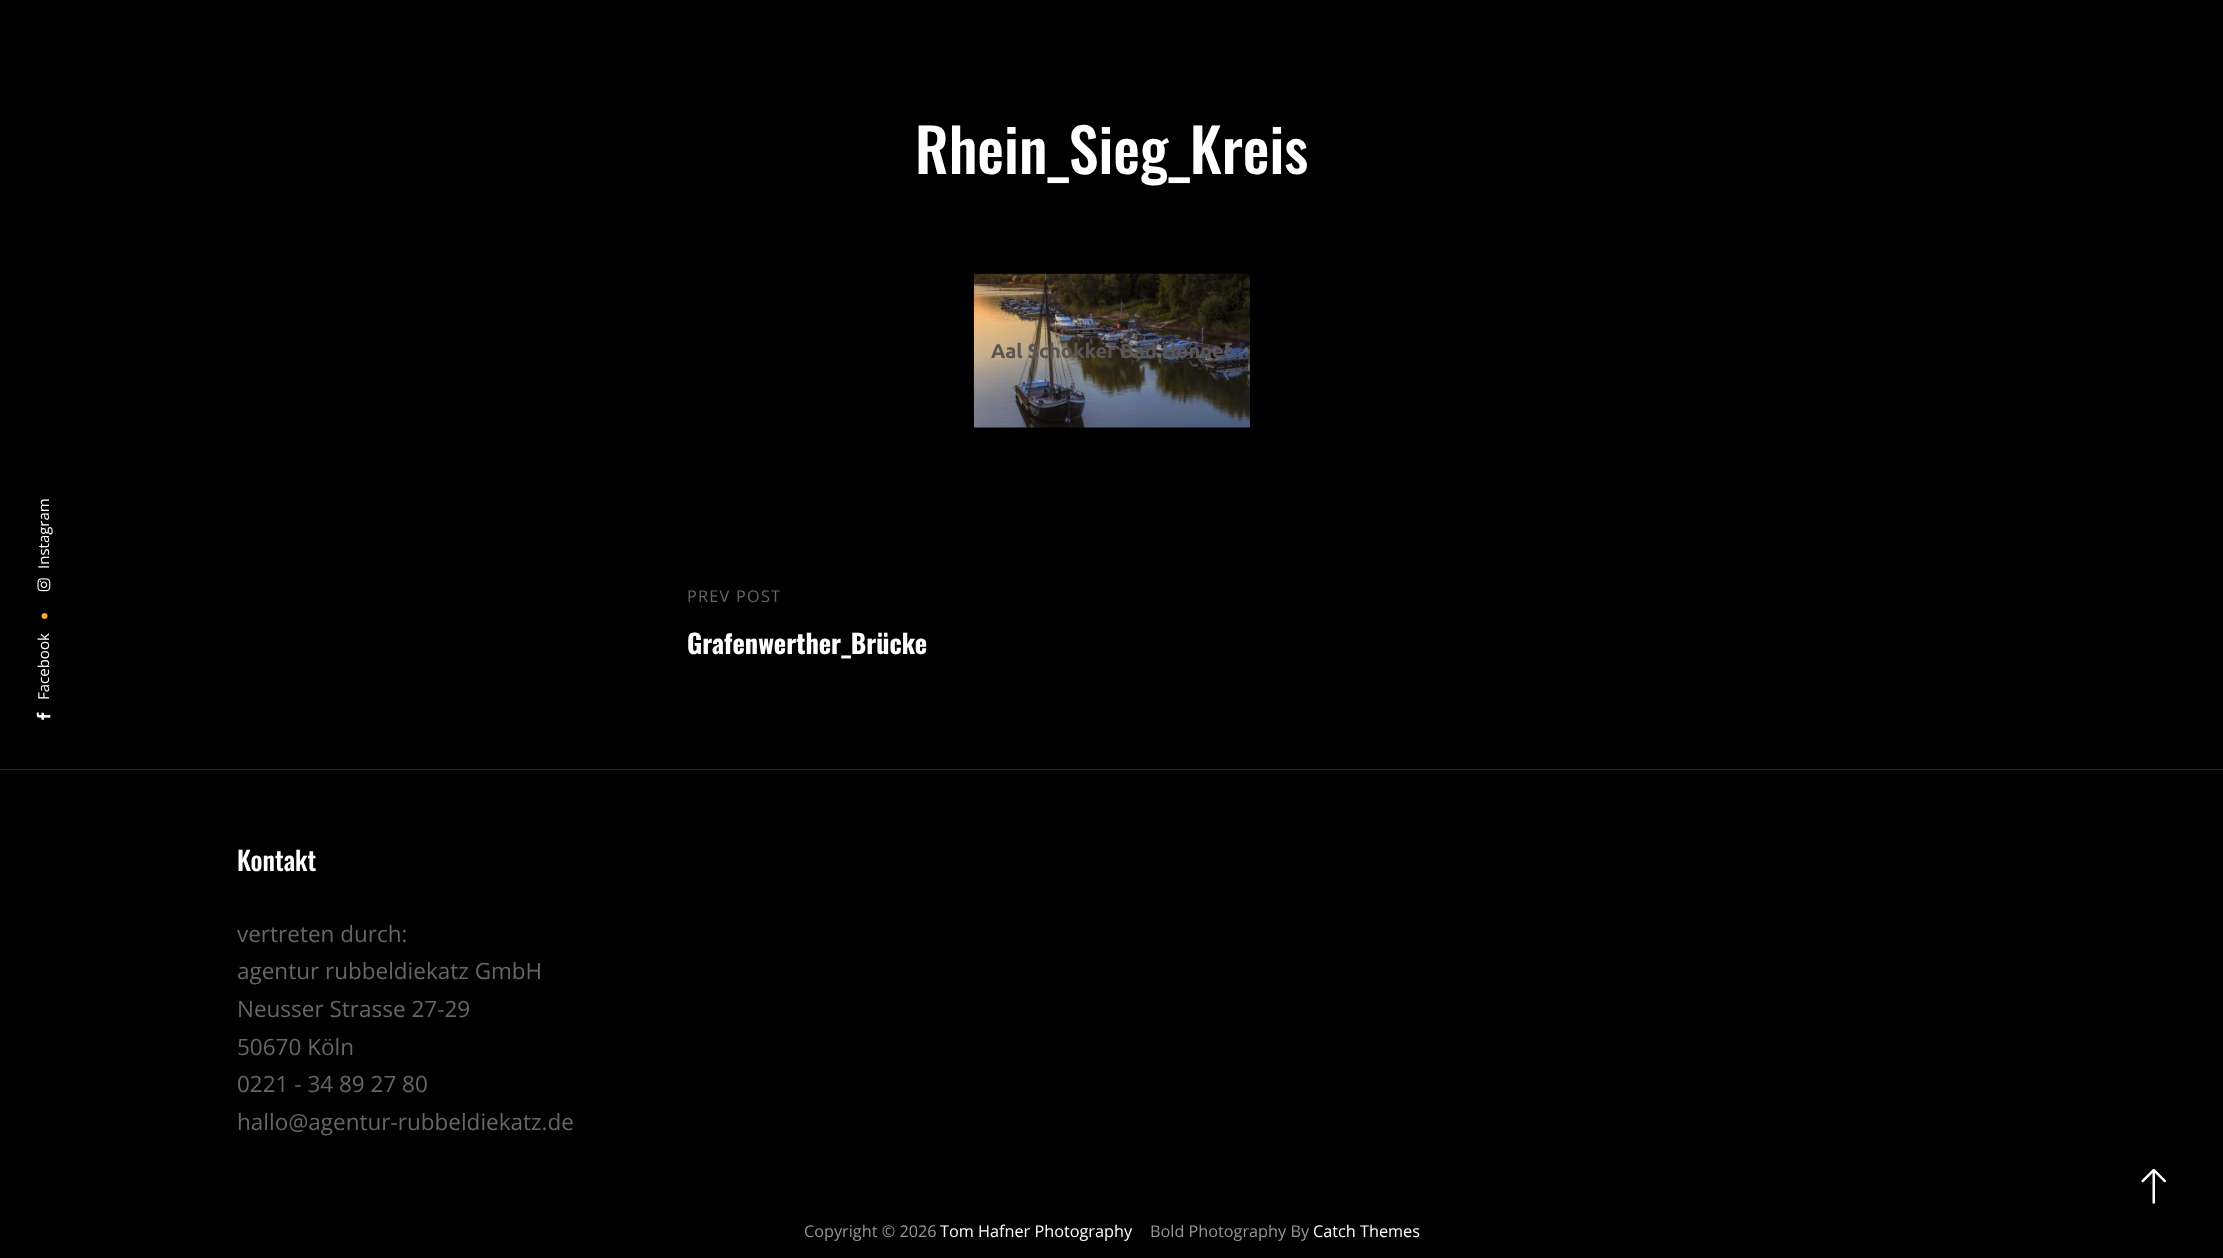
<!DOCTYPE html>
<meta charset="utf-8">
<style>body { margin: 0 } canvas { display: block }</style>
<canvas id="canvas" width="2223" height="1258"></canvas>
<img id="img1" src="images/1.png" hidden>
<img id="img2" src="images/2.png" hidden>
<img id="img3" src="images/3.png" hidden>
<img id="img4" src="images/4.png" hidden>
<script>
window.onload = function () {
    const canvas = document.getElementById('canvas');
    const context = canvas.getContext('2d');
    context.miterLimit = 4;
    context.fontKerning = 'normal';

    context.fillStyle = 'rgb(0, 0, 0)';
    context.fillRect(0, 0, 2223, 1258);
    context.drawImage(document.getElementById('img1'), 37, 578, 14, 14);
    context.fillStyle = 'rgb(249, 169, 38)';
    context.beginPath();
    context.moveTo(41.5, 616);
    context.bezierCurveTo(41.5, 612, 47.5, 612, 47.5, 616);
    context.bezierCurveTo(47.5, 620, 41.5, 620, 41.5, 616);
    context.closePath();
    context.fill();
    context.drawImage(document.getElementById('img2'), 36, 712, 15, 8);
    context.drawImage(document.getElementById('img3'), 973, 273, 277, 155);
    context.fillStyle = 'rgb(40, 40, 40)';
    context.fillRect(0, 769, 2223, 1);
    context.drawImage(document.getElementById('img4'), 2141, 1169, 25, 35);
    context.font = '15px Open Sans';
    context.fillStyle = 'rgb(255, 255, 255)';
    context.save();
    context.translate(49, 569);
    context.rotate(-90 * Math.PI / 180);
    context.fillText('Instagram', 0, 0);
    context.restore();
    context.save();
    context.translate(49, 700);
    context.rotate(-90 * Math.PI / 180);
    context.fillText('Facebook', 0, 0);
    context.restore();
    context.font = '500 60px Oswald';
    context.fillText('Rhein_Sieg_Kreis', 915, 174);
    context.font = 'bold 20px Ubuntu';
    context.fillStyle = 'rgb(90, 85, 81)';
    context.fillText('Aal Schokker Bad Honnef', 991, 358);
    context.letterSpacing = '1.25px';
    context.font = '16.25px Open Sans';
    context.fillStyle = 'rgb(102, 102, 102)';
    context.fillText('PREV POST', 687, 602);
    context.letterSpacing = '0px';
    context.font = 'bold 26.25px Oswald';
    context.fillStyle = 'rgb(255, 255, 255)';
    context.fillText('Grafenwerther_Brücke', 687, 654);
    context.font = '500 26.25px Oswald';
    context.fillText('Kontakt', 237, 871);
    context.font = '22.5px Open Sans';
    context.fillStyle = 'rgb(102, 102, 102)';
    context.fillText('vertreten durch:', 237, 942);
    context.fillText('agentur rubbeldiekatz GmbH', 237, 979);
    context.fillText('Neusser Strasse 27-29', 237, 1017);
    context.fillText('50670 Köln', 237, 1055);
    context.fillText('0221 - 34 89 27 80', 237, 1092);
    context.fillText('hallo@agentur-rubbeldiekatz.de', 237, 1130);
    context.font = '16.25px Open Sans';
    context.fillStyle = 'rgb(150, 150, 150)';
    context.fillText('Copyright © 2026', 804, 1237);
    context.fillStyle = 'rgb(255, 255, 255)';
    context.fillText('Tom Hafner Photography', 940, 1237);
    context.fillStyle = 'rgb(150, 150, 150)';
    context.fillText('Bold Photography By', 1150, 1237);
    context.fillStyle = 'rgb(255, 255, 255)';
    context.fillText('Catch Themes', 1313, 1237);
};
</script>
